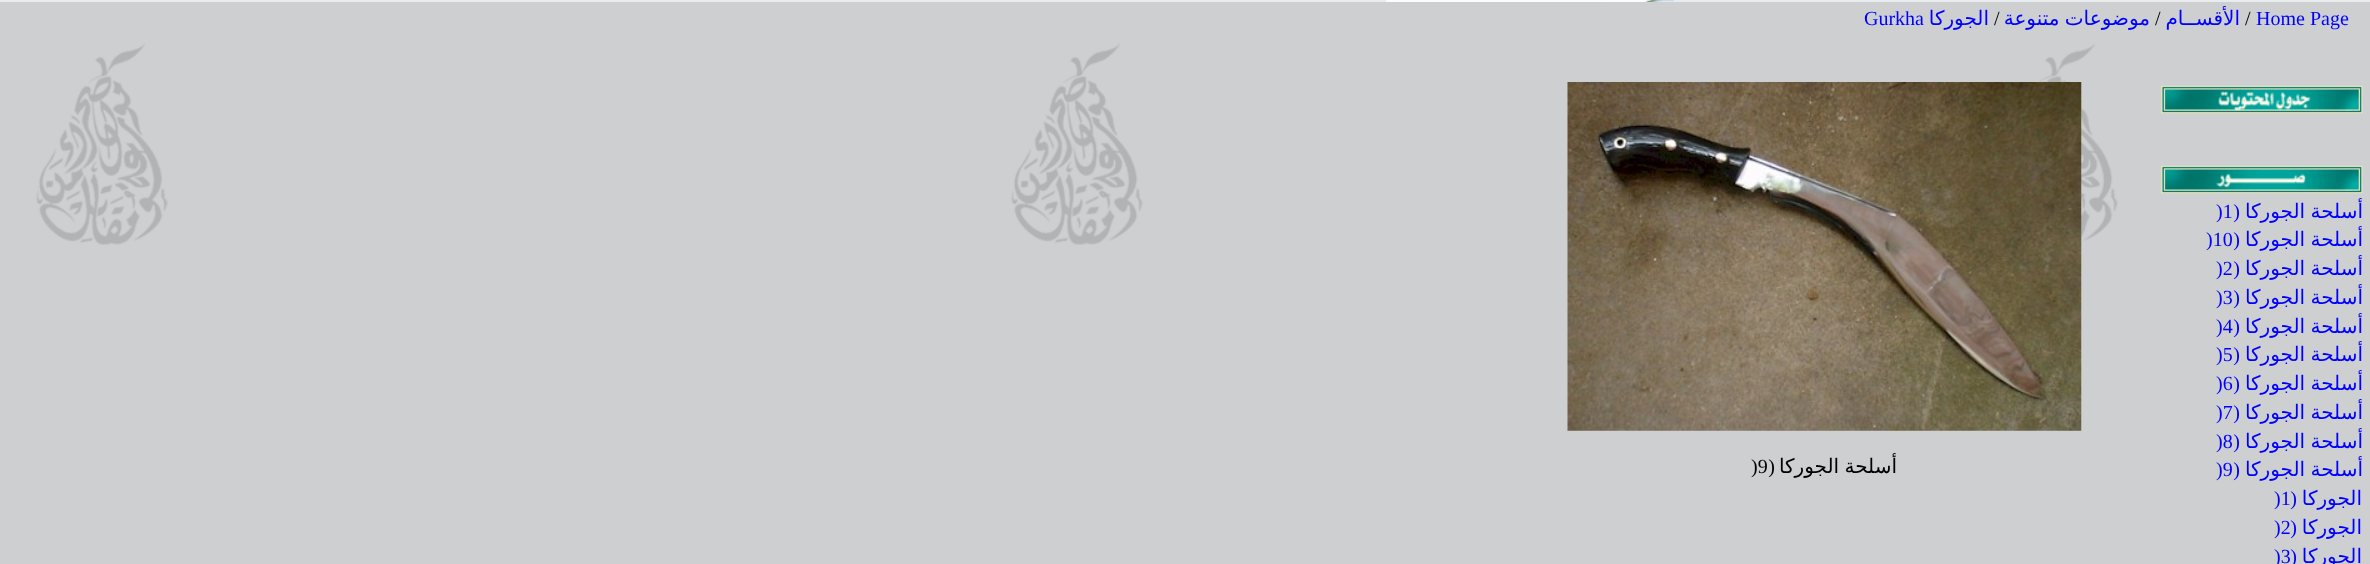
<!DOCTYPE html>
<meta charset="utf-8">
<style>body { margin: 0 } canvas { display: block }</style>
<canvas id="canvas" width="2370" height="564"></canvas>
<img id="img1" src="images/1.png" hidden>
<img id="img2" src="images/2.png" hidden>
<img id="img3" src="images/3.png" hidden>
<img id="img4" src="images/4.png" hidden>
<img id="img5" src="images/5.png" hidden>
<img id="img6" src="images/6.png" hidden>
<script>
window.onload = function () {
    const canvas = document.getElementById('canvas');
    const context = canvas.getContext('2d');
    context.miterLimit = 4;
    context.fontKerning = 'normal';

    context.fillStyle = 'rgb(255, 255, 255)';
    context.fillRect(0, 0, 2370, 564);
    context.drawImage(document.getElementById('img1'), 0, 2, 2370, 562);
    context.fillStyle = 'rgb(232, 236, 239)';
    context.fillRect(0, 0, 2370, 2);
    context.drawImage(document.getElementById('img2'), 1605, 0, 69, 2);
    context.drawImage(document.getElementById('img3'), 1386, 0, 219, 2);
    context.drawImage(document.getElementById('img4'), 2161, 85, 202, 29);
    context.drawImage(document.getElementById('img5'), 2161, 165, 202, 29);
    context.drawImage(document.getElementById('img6'), 1567, 82, 515, 349);
    context.font = '20px Liberation Serif';
    context.fillStyle = 'rgb(0, 0, 255)';
    context.fillText('Home Page', 2256, 25);
    context.fillStyle = 'rgb(0, 0, 0)';
    context.fillText('/', 2245, 25);
    context.direction = 'rtl';
    context.font = '20px DejaVu Sans';
    context.fillStyle = 'rgb(0, 0, 255)';
    context.fillText('الأقســام', 2240, 25);
    context.direction = 'ltr';
    context.font = '20px Liberation Serif';
    context.fillStyle = 'rgb(0, 0, 0)';
    context.fillText('/', 2155, 25);
    context.wordSpacing = '-1px';
    context.direction = 'rtl';
    context.font = '20px DejaVu Sans';
    context.fillStyle = 'rgb(0, 0, 255)';
    context.fillText('موضوعات متنوعة', 2150, 25);
    context.wordSpacing = '0px';
    context.direction = 'ltr';
    context.font = '20px Liberation Serif';
    context.fillStyle = 'rgb(0, 0, 0)';
    context.fillText('/', 1994, 25);
    context.direction = 'rtl';
    context.font = '20px DejaVu Sans';
    context.fillStyle = 'rgb(0, 0, 255)';
    context.fillText('الجوركا', 1989, 25);
    context.direction = 'ltr';
    context.font = '20px Liberation Serif';
    context.fillText('Gurkha', 1864, 25);
    context.wordSpacing = '-1px';
    context.direction = 'rtl';
    context.font = '20px DejaVu Sans';
    context.fillText('أسلحة الجوركا', 2363, 218);
    context.wordSpacing = '0px';
    context.font = '20px Liberation Serif';
    context.fillText('(', 2240, 218);
    context.direction = 'ltr';
    context.fillText(')1', 2216, 218);
    context.wordSpacing = '-1px';
    context.direction = 'rtl';
    context.font = '20px DejaVu Sans';
    context.fillText('أسلحة الجوركا', 2363, 246);
    context.wordSpacing = '0px';
    context.font = '20px Liberation Serif';
    context.fillText('(', 2240, 246);
    context.direction = 'ltr';
    context.fillText(')10', 2206, 246);
    context.wordSpacing = '-1px';
    context.direction = 'rtl';
    context.font = '20px DejaVu Sans';
    context.fillText('أسلحة الجوركا', 2363, 275);
    context.wordSpacing = '0px';
    context.font = '20px Liberation Serif';
    context.fillText('(', 2240, 275);
    context.direction = 'ltr';
    context.fillText(')2', 2216, 275);
    context.wordSpacing = '-1px';
    context.direction = 'rtl';
    context.font = '20px DejaVu Sans';
    context.fillText('أسلحة الجوركا', 2363, 304);
    context.wordSpacing = '0px';
    context.font = '20px Liberation Serif';
    context.fillText('(', 2240, 304);
    context.direction = 'ltr';
    context.fillText(')3', 2216, 304);
    context.wordSpacing = '-1px';
    context.direction = 'rtl';
    context.font = '20px DejaVu Sans';
    context.fillText('أسلحة الجوركا', 2363, 333);
    context.wordSpacing = '0px';
    context.font = '20px Liberation Serif';
    context.fillText('(', 2240, 333);
    context.direction = 'ltr';
    context.fillText(')4', 2216, 333);
    context.wordSpacing = '-1px';
    context.direction = 'rtl';
    context.font = '20px DejaVu Sans';
    context.fillText('أسلحة الجوركا', 2363, 361);
    context.wordSpacing = '0px';
    context.font = '20px Liberation Serif';
    context.fillText('(', 2240, 361);
    context.direction = 'ltr';
    context.fillText(')5', 2216, 361);
    context.wordSpacing = '-1px';
    context.direction = 'rtl';
    context.font = '20px DejaVu Sans';
    context.fillText('أسلحة الجوركا', 2363, 390);
    context.wordSpacing = '0px';
    context.font = '20px Liberation Serif';
    context.fillText('(', 2240, 390);
    context.direction = 'ltr';
    context.fillText(')6', 2216, 390);
    context.wordSpacing = '-1px';
    context.direction = 'rtl';
    context.font = '20px DejaVu Sans';
    context.fillText('أسلحة الجوركا', 2363, 419);
    context.wordSpacing = '0px';
    context.font = '20px Liberation Serif';
    context.fillText('(', 2240, 419);
    context.direction = 'ltr';
    context.fillText(')7', 2216, 419);
    context.wordSpacing = '-1px';
    context.direction = 'rtl';
    context.font = '20px DejaVu Sans';
    context.fillText('أسلحة الجوركا', 2363, 448);
    context.wordSpacing = '0px';
    context.font = '20px Liberation Serif';
    context.fillText('(', 2240, 448);
    context.direction = 'ltr';
    context.fillText(')8', 2216, 448);
    context.wordSpacing = '-1px';
    context.direction = 'rtl';
    context.font = '20px DejaVu Sans';
    context.fillText('أسلحة الجوركا', 2363, 476);
    context.wordSpacing = '0px';
    context.font = '20px Liberation Serif';
    context.fillText('(', 2240, 476);
    context.direction = 'ltr';
    context.fillText(')9', 2216, 476);
    context.direction = 'rtl';
    context.font = '20px DejaVu Sans';
    context.fillText('الجوركا', 2362, 505);
    context.font = '20px Liberation Serif';
    context.fillText('(', 2297, 505);
    context.direction = 'ltr';
    context.fillText(')1', 2274, 505);
    context.direction = 'rtl';
    context.font = '20px DejaVu Sans';
    context.fillText('الجوركا', 2362, 534);
    context.font = '20px Liberation Serif';
    context.fillText('(', 2297, 534);
    context.direction = 'ltr';
    context.fillText(')2', 2274, 534);
    context.direction = 'rtl';
    context.font = '20px DejaVu Sans';
    context.fillText('الجوركا', 2362, 563);
    context.font = '20px Liberation Serif';
    context.fillText('(', 2297, 563);
    context.direction = 'ltr';
    context.fillText(')3', 2274, 563);
    context.wordSpacing = '-1px';
    context.direction = 'rtl';
    context.font = '20px DejaVu Sans';
    context.fillStyle = 'rgb(0, 0, 0)';
    context.fillText('أسلحة الجوركا', 1897, 473);
    context.wordSpacing = '0px';
    context.font = '20px Liberation Serif';
    context.fillText('(', 1775, 473);
    context.direction = 'ltr';
    context.fillText(')9', 1751, 473);
};
</script>
